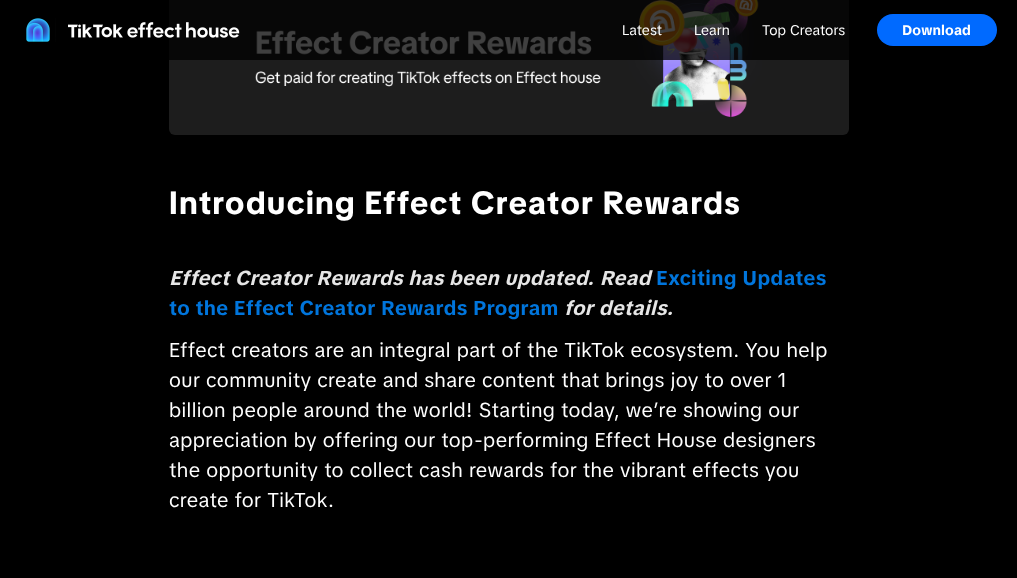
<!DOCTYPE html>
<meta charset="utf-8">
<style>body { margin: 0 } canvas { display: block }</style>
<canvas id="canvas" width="1017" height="578"></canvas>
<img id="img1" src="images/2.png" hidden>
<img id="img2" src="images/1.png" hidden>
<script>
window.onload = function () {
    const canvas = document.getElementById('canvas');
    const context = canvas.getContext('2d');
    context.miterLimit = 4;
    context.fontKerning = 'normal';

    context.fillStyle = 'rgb(0, 0, 0)';
    context.fillRect(0, 0, 1017, 578);
    context.drawImage(document.getElementById('img1'), 169, 0, 680, 135);
    context.fillStyle = 'rgba(0, 0, 0, 0.75)';
    context.fillRect(169, 0, 680, 60);
    context.drawImage(document.getElementById('img2'), 26, 18, 214, 24);
    context.fillStyle = 'rgb(0, 106, 255)';
    context.beginPath();
    context.roundRect(877, 14, 120, 32, 16);
    context.fill();
    context.letterSpacing = '0.1px';
    context.font = '14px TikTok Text';
    context.fillStyle = 'rgb(255, 255, 255)';
    context.fillText('Latest', 622, 35);
    context.fillText('Learn', 694, 35);
    context.fillText('Top Creators', 762, 35);
    context.font = 'bold 14px TikTok Text';
    context.fillText('Download', 902, 35);
    context.letterSpacing = '1.6px';
    context.font = 'bold 32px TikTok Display';
    context.fillText('Introducing Effect Creator Rewards', 169, 214);
    context.letterSpacing = '0.4px';
    context.font = 'italic bold 20px TikTok Text';
    context.fillStyle = 'rgb(230, 230, 230)';
    context.fillText('Effect Creator Rewards has been updated. Read', 169, 285);
    context.font = 'bold 20px TikTok Text';
    context.fillStyle = 'rgb(0, 117, 220)';
    context.fillText('Exciting Updates', 656, 285);
    context.fillText('to the Effect Creator Rewards Program', 169, 315);
    context.font = 'italic bold 20px TikTok Text';
    context.fillStyle = 'rgb(230, 230, 230)';
    context.fillText('for details.', 564, 315);
    context.font = '20px TikTok Text';
    context.fillStyle = 'rgb(255, 255, 255)';
    context.fillText('Effect creators are an integral part of the TikTok ecosystem. You help', 169, 357);
    context.fillText('our community create and share content that brings joy to over 1', 169, 387);
    context.fillText('billion people around the world! Starting today, we’re showing our', 169, 417);
    context.fillText('appreciation by offering our top-performing Effect House designers', 169, 447);
    context.fillText('the opportunity to collect cash rewards for the vibrant effects you', 169, 477);
    context.fillText('create for TikTok.', 169, 507);
};
</script>
